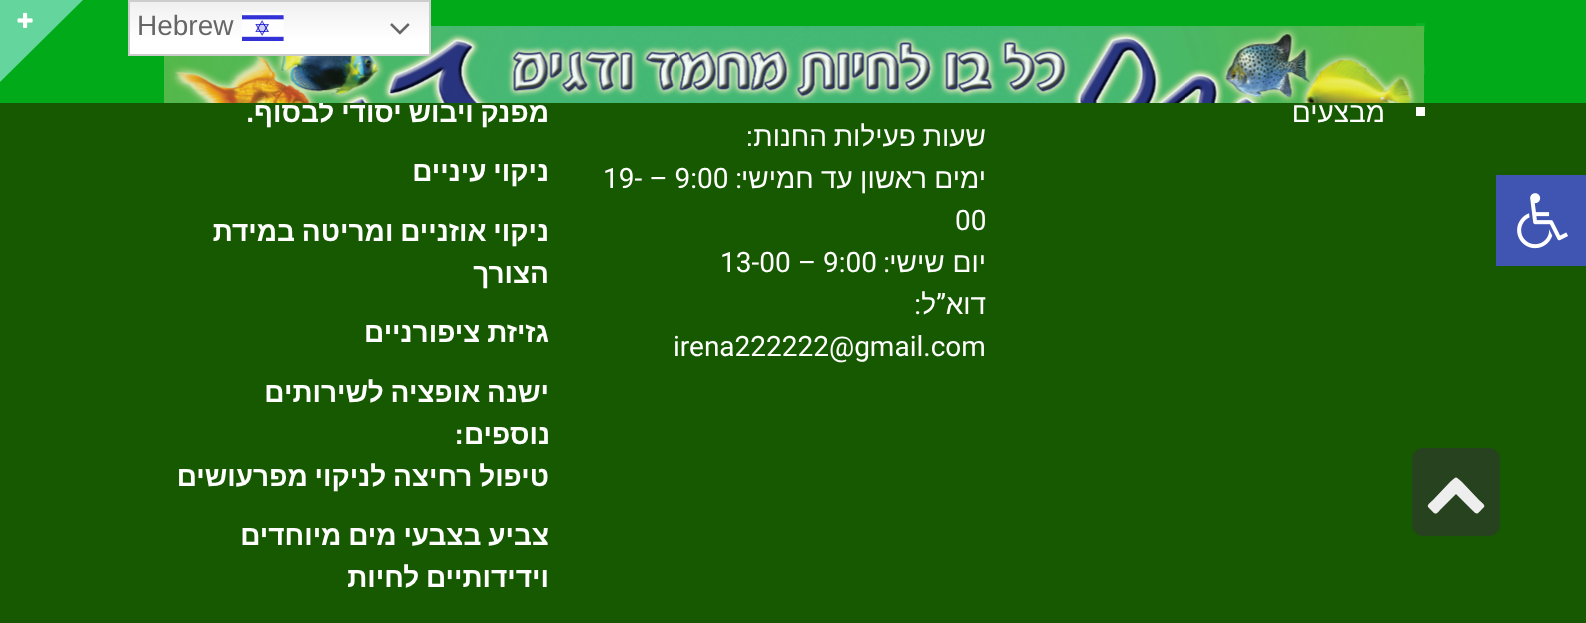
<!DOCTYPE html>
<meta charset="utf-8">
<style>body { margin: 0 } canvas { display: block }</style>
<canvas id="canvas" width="1586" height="623"></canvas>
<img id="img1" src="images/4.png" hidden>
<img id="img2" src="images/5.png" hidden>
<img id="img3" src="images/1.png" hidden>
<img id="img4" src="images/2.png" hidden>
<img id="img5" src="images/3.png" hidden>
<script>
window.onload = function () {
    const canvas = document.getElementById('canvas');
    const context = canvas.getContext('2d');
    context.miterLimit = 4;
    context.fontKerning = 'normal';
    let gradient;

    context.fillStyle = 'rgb(22, 89, 0)';
    context.fillRect(0, 0, 1586, 623);
    context.fillStyle = 'rgb(64, 84, 178)';
    context.fillRect(1496, 175, 90, 91);
    context.drawImage(document.getElementById('img1'), 1517, 193, 51, 56);
    context.fillStyle = 'rgb(255, 255, 255)';
    context.fillRect(1416, 23, 9, 9);
    context.fillRect(1416, 65, 9, 9);
    context.fillRect(1416, 107, 9, 9);
    context.fillStyle = 'rgb(39, 66, 31)';
    context.beginPath();
    context.roundRect(1412, 448, 88, 88, 11);
    context.fill();
    context.fillStyle = 'rgb(238, 238, 238)';
    context.beginPath();
    context.moveTo(1484, 507);
    context.bezierCurveTo(1477, 514, 1478, 516, 1472, 510);
    context.lineTo(1456, 494);
    context.lineTo(1440, 510);
    context.bezierCurveTo(1435, 516, 1435, 514, 1429, 508);
    context.bezierCurveTo(1426, 505, 1429, 504, 1433, 500);
    context.lineTo(1450, 482);
    context.bezierCurveTo(1457, 476, 1455, 476, 1462, 482);
    context.lineTo(1479, 500);
    context.bezierCurveTo(1480, 501, 1486, 505, 1484, 507);
    context.closePath();
    context.fill();
    context.direction = 'rtl';
    context.font = '28px Liberation Sans';
    context.fillStyle = 'rgb(255, 255, 255)';
    context.fillText('מבצעים', 1385, 122);
    context.wordSpacing = '-1px';
    context.font = 'bold 28px Liberation Sans';
    context.fillText('מפנק ויבוש יסודי לבסוף.', 549, 122);
    context.fillStyle = 'rgba(0, 175, 26, 0.95)';
    context.fillRect(0, 0, 1586, 103);
    context.drawImage(document.getElementById('img2'), 164, 26, 1260, 77);
    gradient = context.createLinearGradient(279, 0, 279, 56);
    gradient.addColorStop(0, 'rgb(239, 239, 239)');
    gradient.addColorStop(0.7, 'rgb(255, 255, 255)');
    context.fillStyle = gradient;
    context.fillRect(130, 2, 299, 52);
    context.strokeStyle = 'rgb(204, 204, 204)';
    context.lineWidth = 2;
    context.strokeRect(129, 1, 301, 54);
    context.drawImage(document.getElementById('img3'), 390, 23, 20, 12);
    context.drawImage(document.getElementById('img4'), 242, 12, 42, 29);
    context.wordSpacing = '0px';
    context.direction = 'ltr';
    context.font = '28px Liberation Sans';
    context.fillStyle = 'rgb(102, 102, 102)';
    context.fillText('Hebrew', 137, 35);
    context.fillStyle = 'rgb(100, 214, 157)';
    context.beginPath();
    context.moveTo(0, 82);
    context.lineTo(0, -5);
    context.lineTo(88, -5);
    context.closePath();
    context.fill();
    context.drawImage(document.getElementById('img5'), 17, 12, 16, 16);
    context.wordSpacing = '-1px';
    context.direction = 'rtl';
    context.font = 'bold 28px Liberation Sans';
    context.fillStyle = 'rgb(255, 255, 255)';
    context.fillText('ניקוי עיניים', 549, 181);
    context.fillText('ניקוי אוזניים ומריטה במידת', 549, 241);
    context.wordSpacing = '0px';
    context.fillText('הצורך', 549, 283);
    context.wordSpacing = '-1px';
    context.fillText('גזיזת ציפורניים', 549, 342);
    context.fillText('ישנה אופציה לשירותים', 549, 402);
    context.wordSpacing = '0px';
    context.fillText('נוספים:', 550, 444);
    context.wordSpacing = '-1px';
    context.fillText('טיפול רחיצה לניקוי מפרעושים', 549, 486);
    context.fillText('צביע בצבעי מים מיוחדים', 549, 545);
    context.fillText('וידידותיים לחיות', 549, 587);
    context.font = '28px Liberation Sans';
    context.fillText('שעות פעילות החנות:', 986, 146);
    context.wordSpacing = '-0.5px';
    context.fillText('ימים ראשון עד חמישי', 986, 188);
    context.wordSpacing = '0px';
    context.font = '28px Roboto';
    context.fillText(':', 742, 188);
    context.direction = 'ltr';
    context.fillText('19- – 9:00', 603, 188);
    context.fillText('00', 955, 230);
    context.direction = 'rtl';
    context.font = '28px Liberation Sans';
    context.fillText('יום שישי', 986, 272);
    context.font = '28px Roboto';
    context.fillText(':', 890, 272);
    context.direction = 'ltr';
    context.fillText('13-00 – 9:00', 720, 272);
    context.direction = 'rtl';
    context.font = '28px Liberation Sans';
    context.fillText('דוא', 986, 314);
    context.font = '28px Roboto';
    context.fillText('”', 946, 314);
    context.font = '28px Liberation Sans';
    context.fillText('ל', 936, 314);
    context.font = '28px Roboto';
    context.fillText(':', 921, 314);
    context.direction = 'ltr';
    context.fillText('irena222222@gmail.com', 673, 356);
};
</script>
